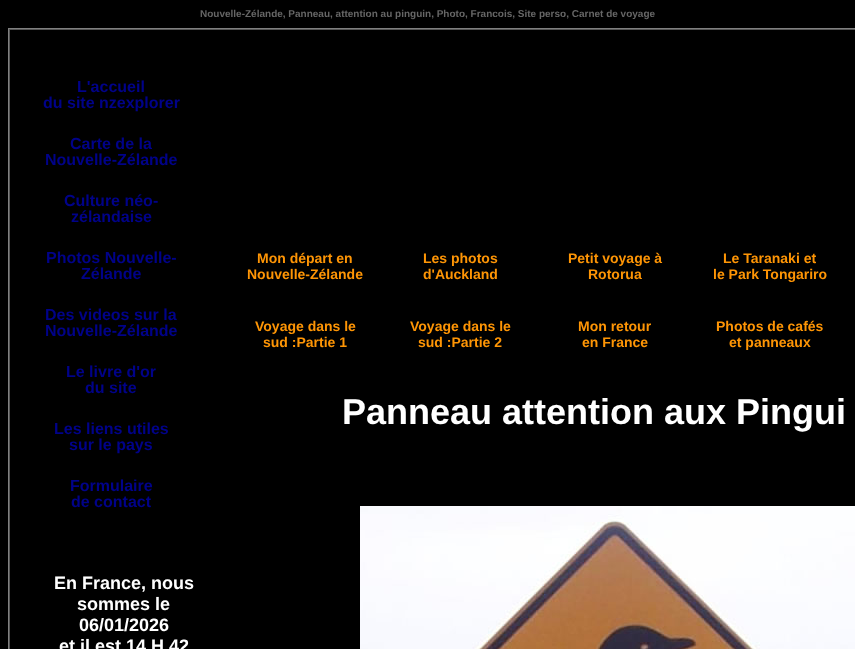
<!DOCTYPE html>
<meta charset="utf-8">
<style>body { margin: 0 } canvas { display: block }</style>
<canvas id="canvas" width="855" height="649"></canvas>
<img id="img1" src="images/1.png" hidden>
<script>
window.onload = function () {
    const canvas = document.getElementById('canvas');
    const context = canvas.getContext('2d');
    context.miterLimit = 4;
    context.fontKerning = 'normal';

    context.fillStyle = 'rgb(0, 0, 0)';
    context.fillRect(0, 0, 855, 649);
    context.fillStyle = 'rgb(128, 128, 128)';
    context.fillRect(8, 28, 847, 1);
    context.fillRect(8, 28, 1, 621);
    context.fillStyle = 'rgb(85, 85, 85)';
    context.fillRect(9, 29, 846, 1);
    context.fillRect(9, 29, 1, 620);
    context.drawImage(document.getElementById('img1'), 360, 506, 495, 143);
    context.font = 'bold 10px Liberation Sans';
    context.fillStyle = 'rgb(102, 102, 102)';
    context.fillText('Nouvelle-Zélande, Panneau, attention au pinguin, Photo, Francois, Site perso, Carnet de voyage', 200, 17);
    context.font = 'bold 16px Liberation Sans';
    context.fillStyle = 'rgb(0, 2, 137)';
    context.fillText('L\'accueil', 77, 92);
    context.fillText('du site nzexplorer', 43, 108);
    context.fillText('Carte de la', 70, 149);
    context.fillText('Nouvelle-Zélande', 45, 165);
    context.fillText('Culture néo-', 64, 206);
    context.fillText('zélandaise', 71, 222);
    context.fillText('Photos Nouvelle-', 46, 263);
    context.fillText('Zélande', 81, 279);
    context.fillText('Des videos sur la', 45, 320);
    context.fillText('Nouvelle-Zélande', 45, 336);
    context.fillText('Le livre d\'or', 66, 377);
    context.fillText('du site', 85, 393);
    context.fillText('Les liens utiles', 54, 434);
    context.fillText('sur le pays', 69, 450);
    context.fillText('Formulaire', 70, 491);
    context.fillText('de contact', 71, 507);
    context.font = 'bold 18px Liberation Sans';
    context.fillStyle = 'rgb(255, 255, 255)';
    context.fillText('En France, nous', 54, 589);
    context.fillText('sommes le', 77, 610);
    context.fillText('06/01/2026', 79, 631);
    context.fillText('et il est 14 H 42', 59, 652);
    context.font = 'bold 14px Liberation Sans';
    context.fillStyle = 'rgb(254, 149, 5)';
    context.fillText('Mon départ en', 257, 263);
    context.fillText('Nouvelle-Zélande', 247, 279);
    context.fillText('Les photos', 423, 263);
    context.fillText('d\'Auckland', 423, 279);
    context.fillText('Petit voyage à', 568, 263);
    context.fillText('Rotorua', 588, 279);
    context.fillText('Le Taranaki et', 723, 263);
    context.fillText('le Park Tongariro', 713, 279);
    context.fillText('Voyage dans le', 255, 331);
    context.fillText('sud :Partie 1', 263, 347);
    context.fillText('Voyage dans le', 410, 331);
    context.fillText('sud :Partie 2', 418, 347);
    context.fillText('Mon retour', 578, 331);
    context.fillText('en France', 582, 347);
    context.fillText('Photos de cafés', 716, 331);
    context.fillText('et panneaux', 729, 347);
    context.font = 'bold 36px Liberation Sans';
    context.fillStyle = 'rgb(255, 255, 255)';
    context.fillText('Panneau attention aux Pingui', 342, 424);
};
</script>
